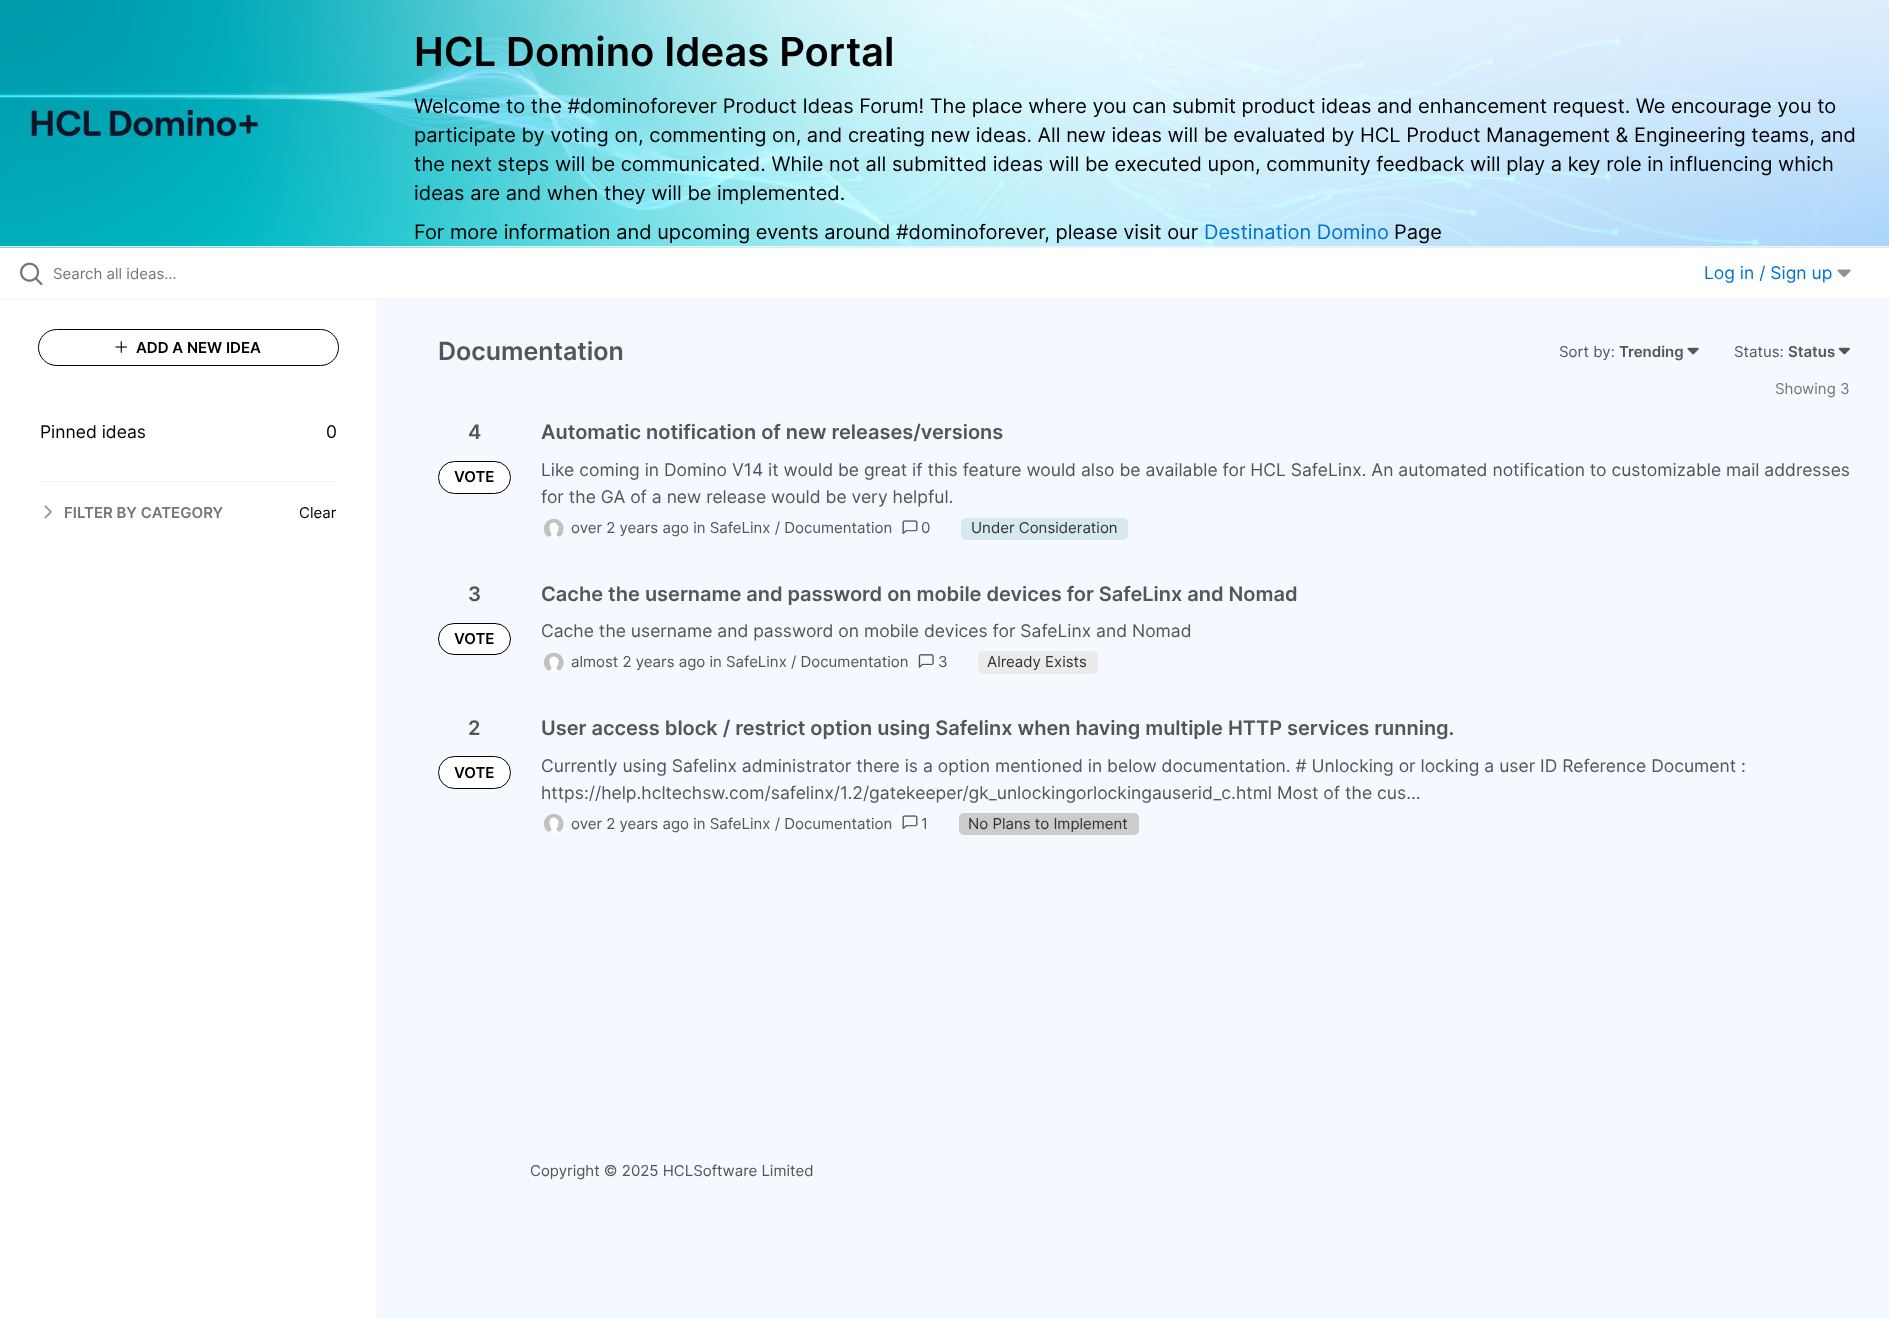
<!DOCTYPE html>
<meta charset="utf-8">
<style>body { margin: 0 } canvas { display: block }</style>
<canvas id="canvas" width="1889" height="1318"></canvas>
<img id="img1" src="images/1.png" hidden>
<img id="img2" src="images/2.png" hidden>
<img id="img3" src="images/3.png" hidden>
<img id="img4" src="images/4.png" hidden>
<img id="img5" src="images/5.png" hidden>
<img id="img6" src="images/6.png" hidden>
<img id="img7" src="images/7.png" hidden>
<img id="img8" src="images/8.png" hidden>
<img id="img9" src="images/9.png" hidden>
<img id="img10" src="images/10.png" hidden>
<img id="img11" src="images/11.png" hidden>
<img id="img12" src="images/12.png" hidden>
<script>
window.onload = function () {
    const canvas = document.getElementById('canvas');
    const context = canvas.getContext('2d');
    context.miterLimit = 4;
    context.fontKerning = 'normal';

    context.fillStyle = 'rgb(243, 249, 254)';
    context.fillRect(0, 0, 1889, 1318);
    context.fillStyle = 'rgb(255, 255, 255)';
    context.fillRect(0, 247, 1889, 51);
    context.drawImage(document.getElementById('img1'), 0, 0, 1889, 248);
    context.fillStyle = 'rgb(244, 244, 244)';
    context.fillRect(0, 246, 1889, 1);
    context.drawImage(document.getElementById('img2'), 31, 110, 227, 27);
    context.fillRect(0, 298, 1889, 1);
    context.drawImage(document.getElementById('img3'), 20, 262, 23, 24);
    context.drawImage(document.getElementById('img4'), 1837, 269, 14, 9);
    context.fillStyle = 'rgb(255, 255, 255)';
    context.fillRect(0, 299, 378, 1019);
    context.fillStyle = 'rgb(244, 244, 244)';
    context.fillRect(376, 299, 1, 1019);
    context.beginPath();
    context.roundRect(38.5, 329.5, 300, 36, 18);
    context.strokeStyle = 'rgb(0, 0, 0)';
    context.stroke();
    context.drawImage(document.getElementById('img5'), 115, 341, 12, 12);
    context.fillStyle = 'rgb(241, 241, 241)';
    context.fillRect(40, 481, 296, 1);
    context.drawImage(document.getElementById('img6'), 44, 505, 8, 14);
    context.drawImage(document.getElementById('img7'), 1687, 347, 12, 8);
    context.drawImage(document.getElementById('img8'), 1838, 347, 12, 8);
    context.fillStyle = 'rgb(255, 255, 255)';
    context.beginPath();
    context.roundRect(438.5, 461.5, 72, 32, 16);
    context.fill();
    context.stroke();
    context.drawImage(document.getElementById('img9'), 544, 519, 20, 20);
    context.drawImage(document.getElementById('img10'), 902, 520, 16, 14);
    context.fillStyle = 'rgb(215, 233, 240)';
    context.beginPath();
    context.roundRect(961, 518, 167, 22, 5);
    context.fill();
    context.fillStyle = 'rgb(255, 255, 255)';
    context.beginPath();
    context.roundRect(438.5, 623.5, 72, 31, 15.5);
    context.fill();
    context.stroke();
    context.drawImage(document.getElementById('img11'), 544, 652, 20, 20);
    context.drawImage(document.getElementById('img12'), 918, 654, 16, 14);
    context.fillStyle = 'rgb(235, 235, 235)';
    context.beginPath();
    context.roundRect(978, 651, 120, 23, 5);
    context.fill();
    context.fillStyle = 'rgb(255, 255, 255)';
    context.beginPath();
    context.roundRect(438.5, 756.5, 72, 32, 16);
    context.fill();
    context.stroke();
    context.drawImage(document.getElementById('img9'), 544, 814, 20, 20);
    context.drawImage(document.getElementById('img10'), 902, 815, 16, 14);
    context.fillStyle = 'rgb(204, 204, 204)';
    context.beginPath();
    context.roundRect(959, 813, 180, 22, 5);
    context.fill();
    context.font = '600 40px Inter';
    context.fillStyle = 'rgb(0, 0, 0)';
    context.fillText('HCL Domino Ideas Portal', 414, 66);
    context.font = '20px Inter';
    context.fillText('Welcome to the #dominoforever Product Ideas Forum! The place where you can submit product ideas and enhancement request. We encourage you to', 414, 113);
    context.fillText('participate by voting on, commenting on, and creating new ideas. All new ideas will be evaluated by HCL Product Management & Engineering teams, and', 414, 142);
    context.fillText('the next steps will be communicated. While not all submitted ideas will be executed upon, community feedback will play a key role in influencing which', 414, 171);
    context.fillText('ideas are and when they will be implemented.', 414, 200);
    context.fillText('For more information and upcoming events around #dominoforever, please visit our', 414, 239);
    context.fillStyle = 'rgb(0, 115, 207)';
    context.fillText('Destination Domino', 1204, 239);
    context.fillStyle = 'rgb(0, 0, 0)';
    context.fillText('Page', 1394, 239);
    context.font = '15px Inter';
    context.fillStyle = 'rgb(118, 118, 118)';
    context.fillText('Search all ideas…', 53, 279);
    context.font = '17.5px Inter';
    context.fillStyle = 'rgb(0, 115, 207)';
    context.fillText('Log in / Sign up', 1704, 279);
    context.font = '600 15px Inter';
    context.fillStyle = 'rgb(0, 0, 0)';
    context.fillText('ADD A NEW IDEA', 136, 353);
    context.font = '17.5px Inter';
    context.fillText('Pinned ideas', 40, 438);
    context.fillText('0', 326, 438);
    context.font = '600 15px Inter';
    context.fillStyle = 'rgb(118, 118, 118)';
    context.fillText('FILTER BY CATEGORY', 64, 518);
    context.font = '15px Inter';
    context.fillStyle = 'rgb(0, 0, 0)';
    context.fillText('Clear', 299, 518);
    context.font = '600 25px Inter';
    context.fillStyle = 'rgb(85, 85, 85)';
    context.fillText('Documentation', 438, 360);
    context.font = '15px Inter';
    context.fillText('Sort by:', 1559, 357);
    context.font = '600 15px Inter';
    context.fillText('Trending', 1619, 357);
    context.font = '15px Inter';
    context.fillText('Status:', 1734, 357);
    context.font = '600 15px Inter';
    context.fillText('Status', 1788, 357);
    context.font = '15px Inter';
    context.fillStyle = 'rgb(118, 118, 118)';
    context.fillText('Showing 3', 1775, 394);
    context.font = '600 20px Inter';
    context.fillStyle = 'rgb(85, 85, 85)';
    context.fillText('4', 468, 439);
    context.font = '600 15px Inter';
    context.fillStyle = 'rgb(0, 0, 0)';
    context.fillText('VOTE', 454, 482);
    context.font = '600 20px Inter';
    context.fillStyle = 'rgb(85, 85, 85)';
    context.fillText('Automatic notification of new releases/versions', 541, 439);
    context.font = '17.5px Inter';
    context.fillText('Like coming in Domino V14 it would be great if this feature would also be available for HCL SafeLinx. An automated notification to customizable mail addresses', 541, 476);
    context.fillText('for the GA of a new release would be very helpful.', 541, 503);
    context.font = '15px Inter';
    context.fillText('over 2 years ago in SafeLinx / Documentation', 571, 533);
    context.fillText('0', 921, 533);
    context.fillStyle = 'rgb(51, 51, 51)';
    context.fillText('Under Consideration', 971, 533);
    context.font = '600 20px Inter';
    context.fillStyle = 'rgb(85, 85, 85)';
    context.fillText('3', 468, 601);
    context.font = '600 15px Inter';
    context.fillStyle = 'rgb(0, 0, 0)';
    context.fillText('VOTE', 454, 644);
    context.font = '600 20px Inter';
    context.fillStyle = 'rgb(85, 85, 85)';
    context.fillText('Cache the username and password on mobile devices for SafeLinx and Nomad', 541, 601);
    context.font = '17.5px Inter';
    context.fillText('Cache the username and password on mobile devices for SafeLinx and Nomad', 541, 637);
    context.font = '15px Inter';
    context.fillText('almost 2 years ago in SafeLinx / Documentation', 571, 667);
    context.fillText('3', 938, 667);
    context.fillStyle = 'rgb(51, 51, 51)';
    context.fillText('Already Exists', 987, 667);
    context.font = '600 20px Inter';
    context.fillStyle = 'rgb(85, 85, 85)';
    context.fillText('2', 468, 735);
    context.font = '600 15px Inter';
    context.fillStyle = 'rgb(0, 0, 0)';
    context.fillText('VOTE', 454, 778);
    context.font = '600 20px Inter';
    context.fillStyle = 'rgb(85, 85, 85)';
    context.fillText('User access block / restrict option using Safelinx when having multiple HTTP services running.', 541, 735);
    context.font = '17.5px Inter';
    context.fillText('Currently using Safelinx administrator there is a option mentioned in below documentation. # Unlocking or locking a user ID Reference Document :', 541, 772);
    context.fillText('https://help.hcltechsw.com/safelinx/1.2/gatekeeper/gk_unlockingorlockingauserid_c.html Most of the cus...', 541, 799);
    context.font = '15px Inter';
    context.fillText('over 2 years ago in SafeLinx / Documentation', 571, 829);
    context.fillText('1', 921, 829);
    context.fillStyle = 'rgb(51, 51, 51)';
    context.fillText('No Plans to Implement', 968, 829);
    context.fillStyle = 'rgb(85, 85, 85)';
    context.fillText('Copyright © 2025 HCLSoftware Limited', 530, 1176);
};
</script>
